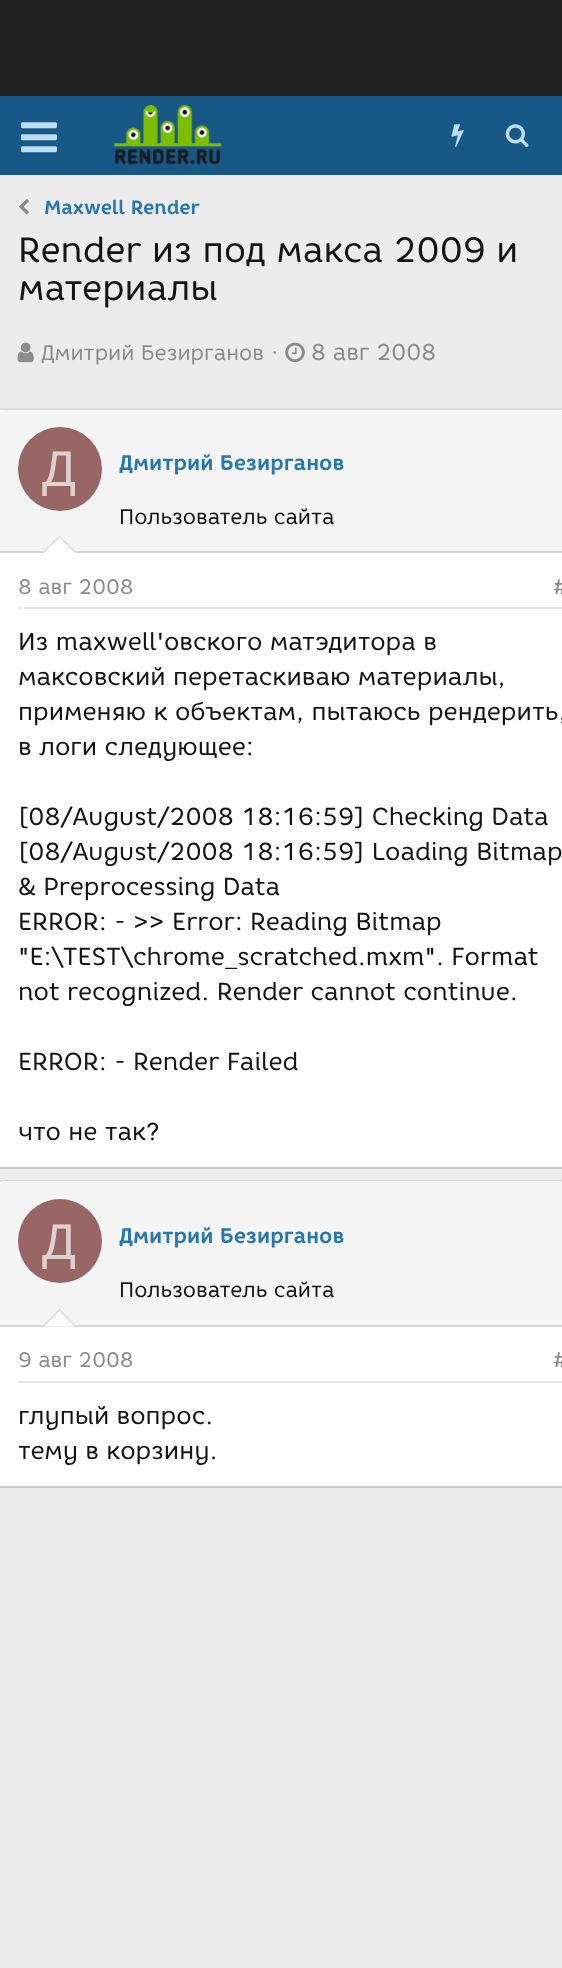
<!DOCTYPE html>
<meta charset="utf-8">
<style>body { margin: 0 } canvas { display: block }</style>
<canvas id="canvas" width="562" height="1968"></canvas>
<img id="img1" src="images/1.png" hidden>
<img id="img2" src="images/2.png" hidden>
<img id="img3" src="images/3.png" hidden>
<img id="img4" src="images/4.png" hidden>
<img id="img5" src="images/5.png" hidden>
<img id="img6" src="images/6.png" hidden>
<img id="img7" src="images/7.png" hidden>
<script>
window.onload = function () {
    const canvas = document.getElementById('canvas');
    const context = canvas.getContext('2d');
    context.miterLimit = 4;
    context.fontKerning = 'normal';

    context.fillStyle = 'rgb(236, 236, 236)';
    context.fillRect(0, 0, 562, 1968);
    context.fillStyle = 'rgb(33, 33, 33)';
    context.fillRect(0, 0, 562, 96);
    context.fillStyle = 'rgb(24, 88, 134)';
    context.fillRect(0, 96, 562, 79);
    context.drawImage(document.getElementById('img1'), 21, 122, 36, 31);
    context.drawImage(document.getElementById('img2'), 113, 105, 109, 60);
    context.drawImage(document.getElementById('img3'), 451, 124, 13, 23);
    context.drawImage(document.getElementById('img4'), 505, 124, 24, 23);
    context.drawImage(document.getElementById('img5'), 19, 199, 10, 16);
    context.drawImage(document.getElementById('img6'), 17, 342, 17, 21);
    context.drawImage(document.getElementById('img7'), 285, 342, 20, 21);
    context.fillStyle = 'rgb(254, 254, 254)';
    context.fillRect(0, 410, 562, 757);
    context.fillStyle = 'rgb(223, 223, 223)';
    context.fillRect(0, 408, 562, 2);
    context.fillStyle = 'rgb(203, 203, 203)';
    context.fillRect(0, 1167, 562, 2);
    context.fillStyle = 'rgb(245, 245, 245)';
    context.beginPath();
    context.moveTo(5, 410);
    context.lineTo(559, 410);
    context.bezierCurveTo(562, 410, 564, 412, 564, 415);
    context.lineTo(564, 553);
    context.lineTo(0, 553);
    context.lineTo(0, 415);
    context.bezierCurveTo(0, 412, 2, 410, 5, 410);
    context.closePath();
    context.fill();
    context.fillStyle = 'rgb(216, 216, 216)';
    context.fillRect(0, 551, 562, 2);
    context.fillStyle = 'rgb(153, 102, 102)';
    context.beginPath();
    context.arc(60, 469, 42, 0, 2 * Math.PI);
    context.fill();
    context.fillStyle = 'rgb(216, 216, 216)';
    context.beginPath();
    context.moveTo(77, 553);
    context.lineTo(42, 553);
    context.lineTo(59.5, 535.5);
    context.closePath();
    context.fill();
    context.fillStyle = 'rgb(254, 254, 254)';
    context.beginPath();
    context.moveTo(75, 553);
    context.lineTo(44, 553);
    context.lineTo(59.5, 537);
    context.closePath();
    context.fill();
    context.fillStyle = 'rgb(231, 231, 231)';
    context.fillRect(18, 607, 544, 2);
    context.fillStyle = 'rgb(254, 254, 254)';
    context.fillRect(0, 1182, 562, 304);
    context.fillStyle = 'rgb(223, 223, 223)';
    context.fillRect(0, 1180, 562, 2);
    context.fillStyle = 'rgb(203, 203, 203)';
    context.fillRect(0, 1486, 562, 2);
    context.fillStyle = 'rgb(245, 245, 245)';
    context.beginPath();
    context.moveTo(5, 1181);
    context.lineTo(559, 1181);
    context.bezierCurveTo(562, 1181, 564, 1183, 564, 1186);
    context.lineTo(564, 1327);
    context.lineTo(0, 1327);
    context.lineTo(0, 1186);
    context.bezierCurveTo(0, 1183, 2, 1181, 5, 1181);
    context.closePath();
    context.fill();
    context.fillStyle = 'rgb(216, 216, 216)';
    context.fillRect(0, 1325, 562, 2);
    context.fillStyle = 'rgb(153, 102, 102)';
    context.beginPath();
    context.arc(60, 1241, 42, 0, 2 * Math.PI);
    context.fill();
    context.fillStyle = 'rgb(216, 216, 216)';
    context.beginPath();
    context.moveTo(77, 1326.5);
    context.lineTo(42, 1326.5);
    context.lineTo(59.5, 1309);
    context.closePath();
    context.fill();
    context.fillStyle = 'rgb(254, 254, 254)';
    context.beginPath();
    context.moveTo(75, 1326.5);
    context.lineTo(44, 1326.5);
    context.lineTo(59.5, 1311);
    context.closePath();
    context.fill();
    context.fillStyle = 'rgb(231, 231, 231)';
    context.fillRect(18, 1381, 544, 2);
    context.font = 'bold 19.25px "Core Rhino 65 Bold"';
    context.fillStyle = 'rgb(37, 119, 177)';
    context.fillText('Maxwell Render', 44, 214);
    context.font = '35px "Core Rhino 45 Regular"';
    context.fillStyle = 'rgb(20, 20, 20)';
    context.fillText('Render из под макса 2009 и', 18, 262);
    context.fillText('материалы', 18, 300);
    context.font = '21px "Core Rhino 45 Regular"';
    context.fillStyle = 'rgb(140, 140, 140)';
    context.fillText('Дмитрий Безирганов', 41, 360);
    context.font = '22.75px "Core Rhino 45 Regular"';
    context.fillText('·', 271, 360);
    context.fillText('8 авг 2008', 311, 360);
    context.font = '50px Liberation Sans';
    context.fillStyle = 'rgb(224, 209, 209)';
    context.fillText('Д', 42, 486);
    context.font = 'bold 21px "Core Rhino 65 Bold"';
    context.fillStyle = 'rgb(37, 119, 177)';
    context.fillText('Дмитрий Безирганов', 119, 470);
    context.font = '21px "Core Rhino 45 Regular"';
    context.fillStyle = 'rgb(20, 20, 20)';
    context.fillText('Пользователь сайта', 119, 524);
    context.fillStyle = 'rgb(140, 140, 140)';
    context.fillText('8 авг 2008', 18, 594);
    context.fillText('#', 553, 594);
    context.font = '24.5px "Core Rhino 45 Regular"';
    context.fillStyle = 'rgb(20, 20, 20)';
    context.fillText('Из maxwell\'овского матэдитора в', 18, 650);
    context.fillText('максовский перетаскиваю материалы,', 18, 685);
    context.fillText('применяю к объектам, пытаюсь рендерить,', 18, 720);
    context.fillText('в логи следующее:', 18, 755);
    context.fillText('[08/August/2008 18:16:59] Checking Data', 18, 825);
    context.fillText('[08/August/2008 18:16:59] Loading Bitmap', 18, 860);
    context.fillText('& Preprocessing Data', 18, 895);
    context.fillText('ERROR: - >> Error: Reading Bitmap', 18, 930);
    context.fillText('"E:\\TEST\\chrome_scratched.mxm". Format', 18, 965);
    context.fillText('not recognized. Render cannot continue.', 18, 1000);
    context.fillText('ERROR: - Render Failed', 18, 1070);
    context.fillText('что не так?', 18, 1140);
    context.font = '50px Liberation Sans';
    context.fillStyle = 'rgb(224, 209, 209)';
    context.fillText('Д', 42, 1259);
    context.font = 'bold 21px "Core Rhino 65 Bold"';
    context.fillStyle = 'rgb(37, 119, 177)';
    context.fillText('Дмитрий Безирганов', 119, 1243);
    context.font = '21px "Core Rhino 45 Regular"';
    context.fillStyle = 'rgb(20, 20, 20)';
    context.fillText('Пользователь сайта', 119, 1297);
    context.fillStyle = 'rgb(140, 140, 140)';
    context.fillText('9 авг 2008', 18, 1367);
    context.fillText('#', 553, 1367);
    context.font = '24.5px "Core Rhino 45 Regular"';
    context.fillStyle = 'rgb(20, 20, 20)';
    context.fillText('глупый вопрос.', 18, 1424);
    context.fillText('тему в корзину.', 18, 1459);
};
</script>
